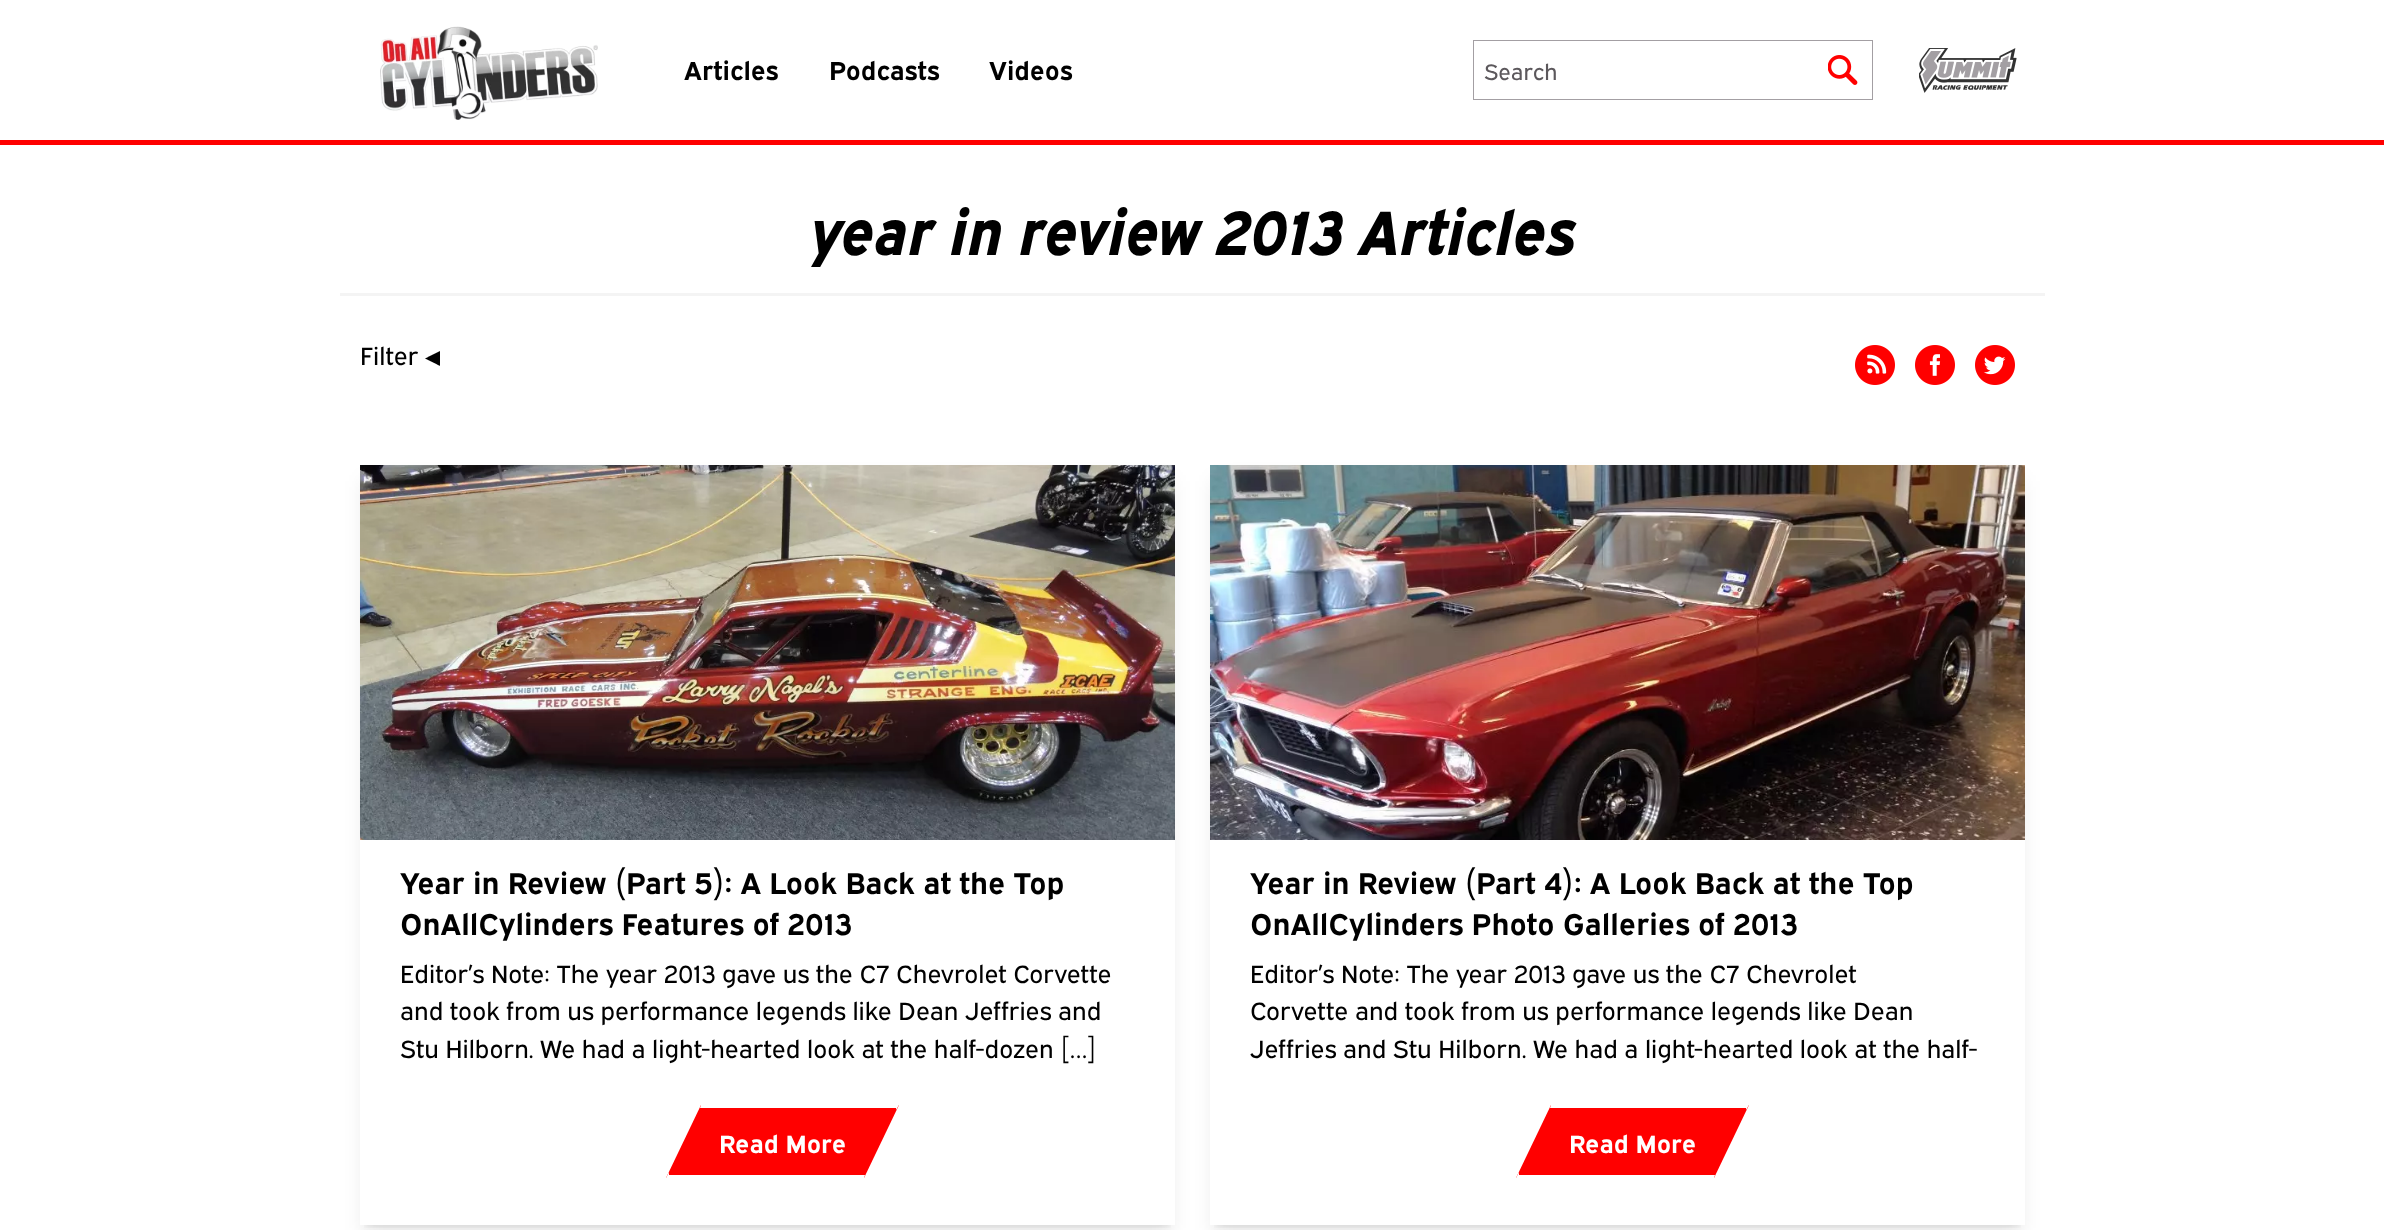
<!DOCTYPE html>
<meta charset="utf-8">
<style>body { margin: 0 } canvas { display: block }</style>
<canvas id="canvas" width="2384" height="1230"></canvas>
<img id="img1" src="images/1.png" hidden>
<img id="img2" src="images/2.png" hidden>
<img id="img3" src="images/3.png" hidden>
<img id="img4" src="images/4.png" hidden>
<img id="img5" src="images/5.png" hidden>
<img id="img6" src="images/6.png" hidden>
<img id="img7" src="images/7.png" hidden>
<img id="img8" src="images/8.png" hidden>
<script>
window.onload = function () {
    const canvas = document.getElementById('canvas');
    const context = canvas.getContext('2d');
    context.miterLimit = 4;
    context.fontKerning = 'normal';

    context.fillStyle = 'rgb(255, 255, 255)';
    context.fillRect(0, 0, 2384, 1230);
    context.fillStyle = 'rgb(255, 0, 0)';
    context.fillRect(0, 140, 2384, 5);
    context.drawImage(document.getElementById('img1'), 380, 26, 218, 94);
    context.strokeStyle = 'rgb(163, 159, 163)';
    context.strokeRect(1473.5, 40.5, 399, 59);
    context.drawImage(document.getElementById('img2'), 1828, 55, 30, 30);
    context.drawImage(document.getElementById('img3'), 1919, 48, 98, 45);
    context.fillStyle = 'rgb(244, 244, 244)';
    context.fillRect(340, 293, 1705, 3);
    context.drawImage(document.getElementById('img4'), 1855, 345, 40, 40);
    context.drawImage(document.getElementById('img5'), 1915, 345, 40, 40);
    context.drawImage(document.getElementById('img6'), 1975, 345, 40, 40);
    context.save();
    context.beginPath();
    context.rect(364, 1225, 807, 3);
    context.clip();
    context.fillStyle = 'rgba(0, 0, 0, 0.1)';
    context.filter = 'blur(4px)';
    context.beginPath();
    context.rect(365, 475, 805, 750);
    context.fill();
    context.filter = 'none';
    context.restore();
    context.save();
    context.beginPath();
    context.moveTo(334, 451);
    context.lineTo(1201, 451);
    context.lineTo(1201, 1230);
    context.lineTo(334, 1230);
    context.closePath();
    context.moveTo(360, 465);
    context.lineTo(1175, 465);
    context.lineTo(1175, 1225);
    context.lineTo(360, 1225);
    context.closePath();
    context.clip('evenodd');
    context.fillStyle = 'rgba(0, 0, 0, 0.1)';
    context.filter = 'blur(9.5px)';
    context.beginPath();
    context.rect(364, 481, 807, 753);
    context.fill();
    context.filter = 'none';
    context.restore();
    context.drawImage(document.getElementById('img7'), 360, 465, 815, 375);
    context.fillStyle = 'rgb(255, 0, 0)';
    context.beginPath();
    context.moveTo(701, 1105);
    context.lineTo(666, 1178);
    context.lineTo(864, 1178);
    context.lineTo(899, 1105);
    context.closePath();
    context.fill();
    context.fillStyle = 'rgb(255, 255, 255)';
    context.beginPath();
    context.moveTo(701, 1105);
    context.lineTo(700, 1108);
    context.lineTo(896, 1108);
    context.lineTo(896, 1110);
    context.lineTo(899, 1105);
    context.closePath();
    context.moveTo(865, 1175);
    context.lineTo(669, 1175);
    context.lineTo(669, 1172);
    context.lineTo(666, 1178);
    context.lineTo(864, 1178);
    context.closePath();
    context.fill('evenodd');
    context.save();
    context.beginPath();
    context.rect(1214, 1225, 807, 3);
    context.clip();
    context.fillStyle = 'rgba(0, 0, 0, 0.1)';
    context.filter = 'blur(4px)';
    context.beginPath();
    context.rect(1215, 475, 805, 750);
    context.fill();
    context.filter = 'none';
    context.restore();
    context.save();
    context.beginPath();
    context.moveTo(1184, 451);
    context.lineTo(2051, 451);
    context.lineTo(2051, 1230);
    context.lineTo(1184, 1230);
    context.closePath();
    context.moveTo(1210, 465);
    context.lineTo(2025, 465);
    context.lineTo(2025, 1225);
    context.lineTo(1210, 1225);
    context.closePath();
    context.clip('evenodd');
    context.fillStyle = 'rgba(0, 0, 0, 0.1)';
    context.filter = 'blur(9.5px)';
    context.beginPath();
    context.rect(1214, 481, 807, 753);
    context.fill();
    context.filter = 'none';
    context.restore();
    context.drawImage(document.getElementById('img8'), 1210, 465, 815, 375);
    context.fillStyle = 'rgb(255, 0, 0)';
    context.beginPath();
    context.moveTo(1551, 1105);
    context.lineTo(1516, 1178);
    context.lineTo(1714, 1178);
    context.lineTo(1749, 1105);
    context.closePath();
    context.fill();
    context.fillStyle = 'rgb(255, 255, 255)';
    context.beginPath();
    context.moveTo(1551, 1105);
    context.lineTo(1550, 1108);
    context.lineTo(1746, 1108);
    context.lineTo(1746, 1110);
    context.lineTo(1749, 1105);
    context.closePath();
    context.moveTo(1715, 1175);
    context.lineTo(1519, 1175);
    context.lineTo(1519, 1172);
    context.lineTo(1516, 1178);
    context.lineTo(1714, 1178);
    context.closePath();
    context.fill('evenodd');
    context.font = 'bold 26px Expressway';
    context.fillStyle = 'rgb(0, 0, 0)';
    context.fillText('Articles', 684, 80);
    context.fillText('Podcasts', 829, 80);
    context.fillText('Videos', 989, 80);
    context.font = '22.5px Expressway';
    context.fillStyle = 'rgb(92, 88, 92)';
    context.fillText('Search', 1484, 80);
    context.font = 'italic 800 62.5px Expressway';
    context.fillStyle = 'rgb(0, 0, 0)';
    context.fillText('year in review 2013 Articles', 810, 255);
    context.font = '25px Expressway';
    context.fillText('Filter', 360, 365);
    context.font = '25px DejaVu Sans Mono';
    context.fillText('◀︎', 425, 365);
    context.font = 'bold 30px Expressway';
    context.fillText('Year in Review (Part 5): A Look Back at the Top', 400, 894);
    context.fillText('OnAllCylinders Features of 2013', 400, 935);
    context.font = '25px Expressway';
    context.fillText('Editor’s Note: The year 2013 gave us the C7 Chevrolet Corvette', 400, 983);
    context.fillText('and took from us performance legends like Dean Jeffries and', 400, 1020);
    context.fillText('Stu Hilborn. We had a light-hearted look at the half-dozen […]', 400, 1058);
    context.font = 'bold 25px Expressway';
    context.fillStyle = 'rgb(255, 255, 255)';
    context.fillText('Read More', 719, 1153);
    context.font = 'bold 30px Expressway';
    context.fillStyle = 'rgb(0, 0, 0)';
    context.fillText('Year in Review (Part 4): A Look Back at the Top', 1250, 894);
    context.fillText('OnAllCylinders Photo Galleries of 2013', 1250, 935);
    context.font = '25px Expressway';
    context.fillText('Editor’s Note: The year 2013 gave us the C7 Chevrolet', 1250, 983);
    context.fillText('Corvette and took from us performance legends like Dean', 1250, 1020);
    context.fillText('Jeffries and Stu Hilborn. We had a light-hearted look at the half-', 1250, 1058);
    context.font = 'bold 25px Expressway';
    context.fillStyle = 'rgb(255, 255, 255)';
    context.fillText('Read More', 1569, 1153);
};
</script>
